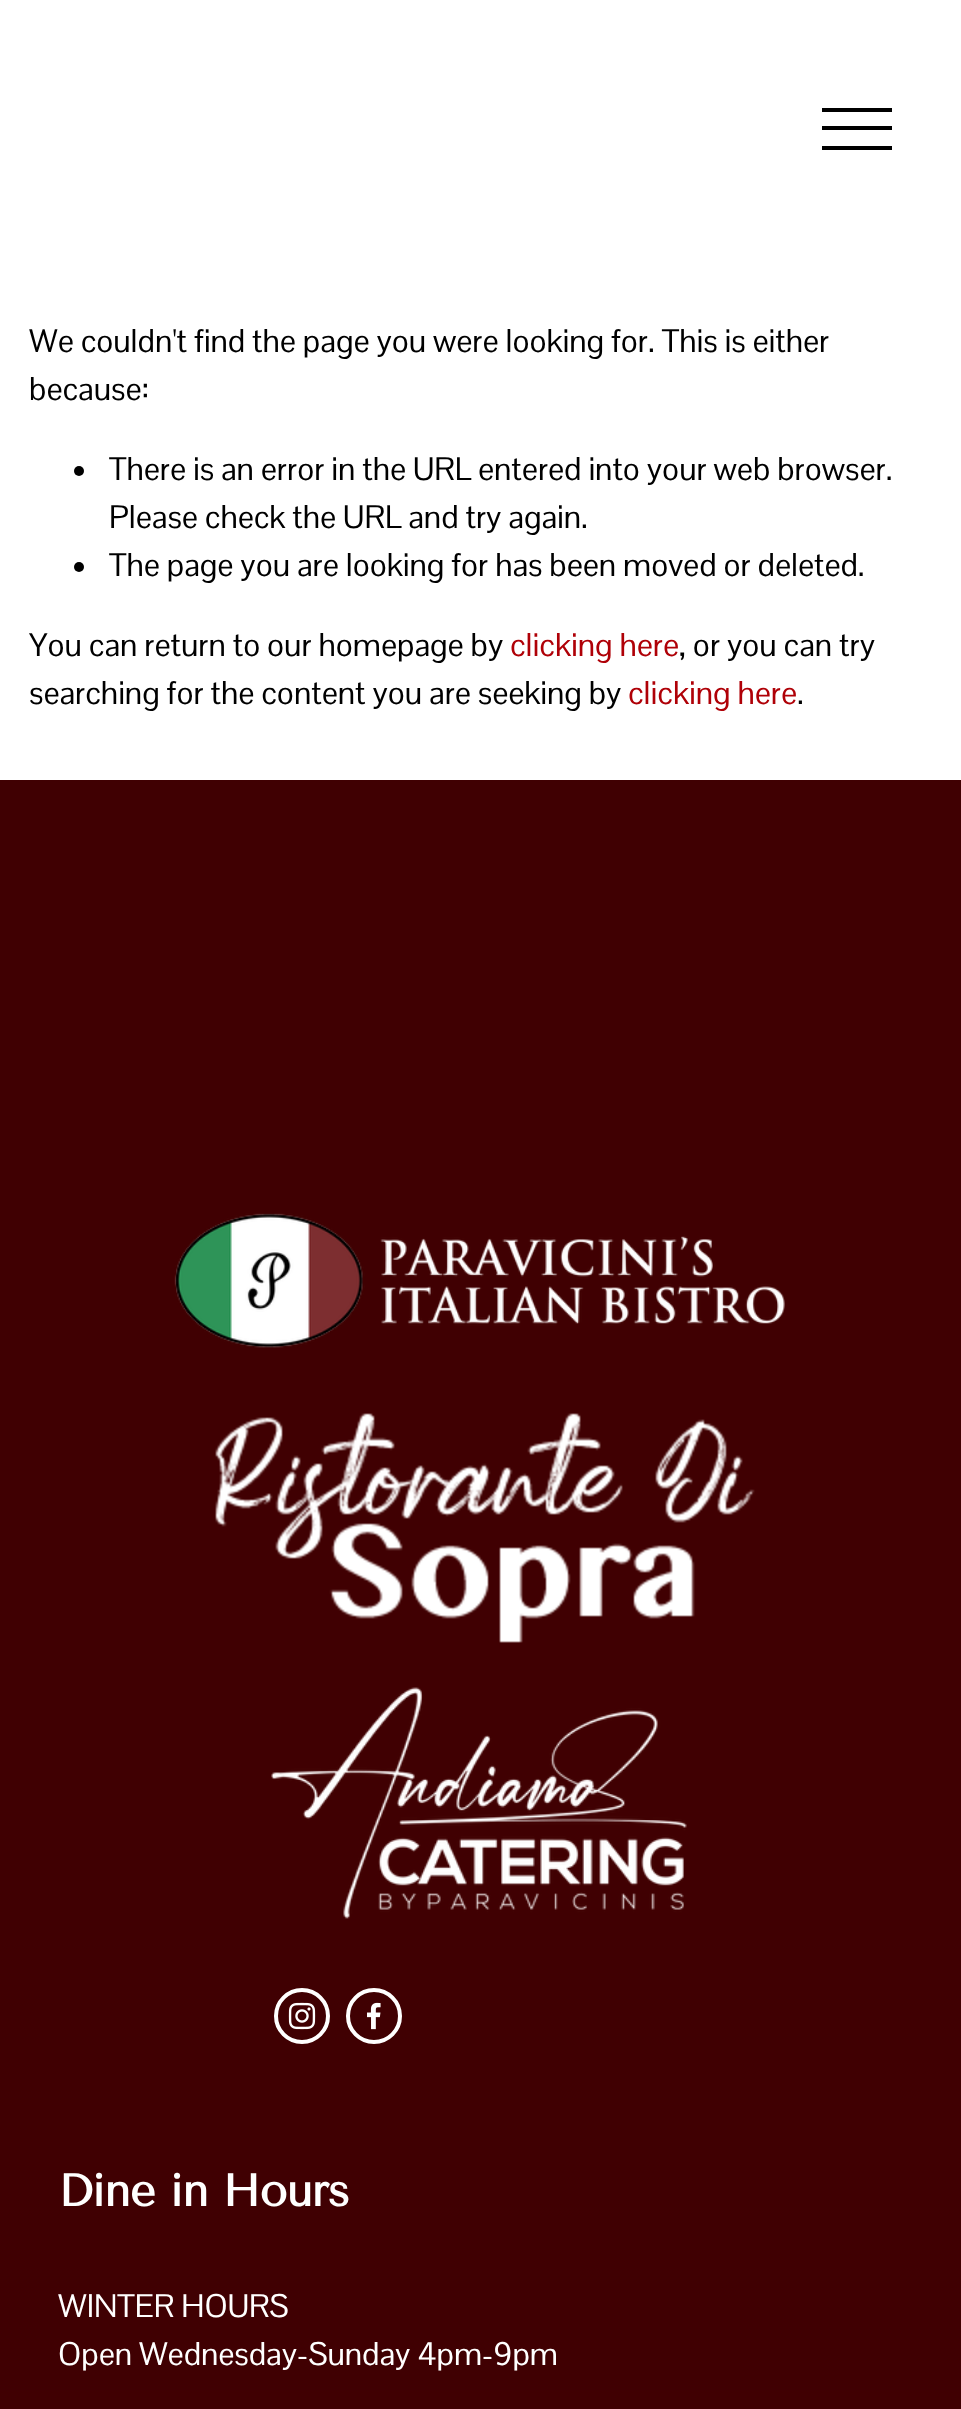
<!DOCTYPE html>
<meta charset="utf-8">
<style>body { margin: 0 } canvas { display: block }</style>
<canvas id="canvas" width="961" height="2409"></canvas>
<img id="img1" src="images/1.png" hidden>
<img id="img2" src="images/2.png" hidden>
<img id="img3" src="images/3.png" hidden>
<img id="img4" src="images/4.png" hidden>
<img id="img5" src="images/5.png" hidden>
<script>
window.onload = function () {
    const canvas = document.getElementById('canvas');
    const context = canvas.getContext('2d');
    context.miterLimit = 4;
    context.fontKerning = 'normal';

    context.fillStyle = 'rgb(255, 255, 255)';
    context.fillRect(0, 0, 961, 2409);
    context.fillStyle = 'rgb(0, 0, 0)';
    context.fillRect(822, 108, 70, 4);
    context.fillRect(822, 126, 70, 4);
    context.fillRect(822, 146, 70, 4);
    context.beginPath();
    context.arc(79, 471, 5, 0, 2 * Math.PI);
    context.fill();
    context.beginPath();
    context.arc(79, 567, 5, 0, 2 * Math.PI);
    context.fill();
    context.fillStyle = 'rgb(64, 0, 2)';
    context.fillRect(0, 780, 961, 1629);
    context.drawImage(document.getElementById('img1'), 174, 1213, 611, 135);
    context.drawImage(document.getElementById('img2'), 215, 1413, 540, 230);
    context.drawImage(document.getElementById('img3'), 271, 1687, 416, 232);
    context.beginPath();
    context.arc(302, 2016, 26, 0, 2 * Math.PI);
    context.strokeStyle = 'rgb(255, 255, 255)';
    context.lineWidth = 4;
    context.stroke();
    context.drawImage(document.getElementById('img4'), 288, 2002, 28, 28);
    context.beginPath();
    context.arc(374, 2016, 26, 0, 2 * Math.PI);
    context.stroke();
    context.drawImage(document.getElementById('img5'), 367, 2002, 14, 28);
    context.font = '32px Pontano Sans';
    context.fillStyle = 'rgb(0, 0, 0)';
    context.fillText('We couldn\'t find the page you were looking for. This is either', 29, 352);
    context.fillText('because:', 29, 400);
    context.fillText('There is an error in the URL entered into your web browser.', 109, 480);
    context.fillText('Please check the URL and try again.', 109, 528);
    context.fillText('The page you are looking for has been moved or deleted.', 109, 576);
    context.fillText('You can return to our homepage by', 29, 656);
    context.fillStyle = 'rgb(175, 0, 7)';
    context.fillText('clicking here', 510, 656);
    context.fillStyle = 'rgb(0, 0, 0)';
    context.fillText(', or you can try', 679, 656);
    context.fillText('searching for the content you are seeking by', 29, 704);
    context.fillStyle = 'rgb(175, 0, 7)';
    context.fillText('clicking here', 628, 704);
    context.fillStyle = 'rgb(0, 0, 0)';
    context.fillText('.', 797, 704);
    context.letterSpacing = '-0.9px';
    context.font = 'bold 45px Tenor Sans';
    context.fillStyle = 'rgb(255, 255, 255)';
    context.fillText('Dine in Hours', 58, 2206);
    context.letterSpacing = '0px';
    context.font = '32px Pontano Sans';
    context.fillText('WINTER HOURS', 58, 2317);
    context.fillText('Open Wednesday-Sunday 4pm-9pm', 58, 2365);
};
</script>
